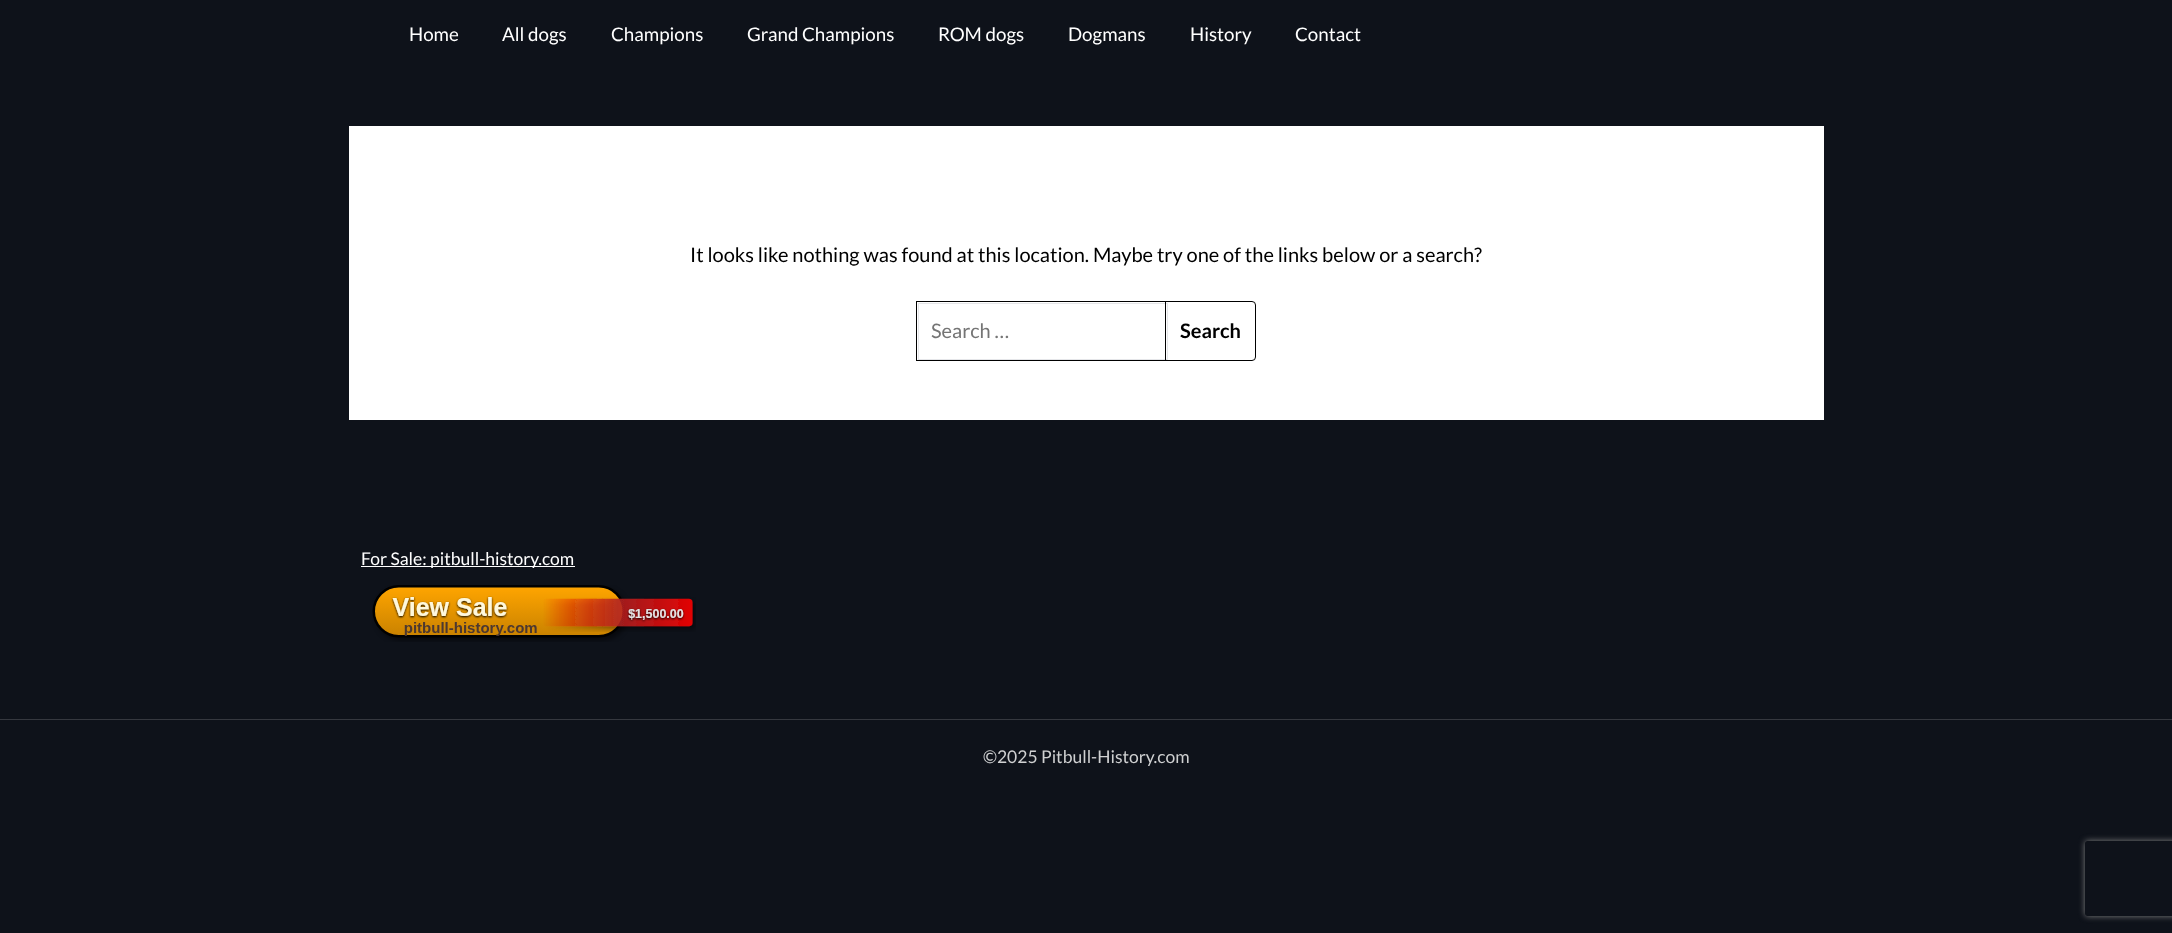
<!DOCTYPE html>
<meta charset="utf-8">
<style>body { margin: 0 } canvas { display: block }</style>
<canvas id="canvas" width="2172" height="933"></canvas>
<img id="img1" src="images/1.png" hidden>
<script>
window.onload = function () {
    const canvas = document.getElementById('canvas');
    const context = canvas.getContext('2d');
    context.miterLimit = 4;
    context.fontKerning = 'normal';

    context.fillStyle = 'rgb(14, 18, 26)';
    context.fillRect(0, 0, 2172, 933);
    context.fillStyle = 'rgb(255, 255, 255)';
    context.fillRect(349, 126, 1475, 294);
    context.fillStyle = 'rgb(0, 0, 0)';
    context.fillRect(916, 301, 252, 1);
    context.fillRect(916, 360, 252, 1);
    context.fillRect(916, 301, 1, 60);
    context.strokeStyle = 'rgb(229, 230, 233)';
    context.strokeRect(918.5, 303.5, 249, 56);
    context.beginPath();
    context.roundRect(1165.5, 301.5, 90, 59, [0, 3.5, 3.5, 0]);
    context.strokeStyle = 'rgb(0, 0, 0)';
    context.stroke();
    context.fillStyle = 'rgb(255, 255, 255)';
    context.fillRect(361, 566, 214, 1);
    context.drawImage(document.getElementById('img1'), 372, 585, 324, 57);
    context.fillStyle = 'rgb(53, 56, 63)';
    context.fillRect(0, 719, 2172, 1);
    context.save();
    context.beginPath();
    context.moveTo(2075, 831);
    context.lineTo(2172, 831);
    context.lineTo(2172, 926);
    context.lineTo(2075, 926);
    context.closePath();
    context.moveTo(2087.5, 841);
    context.lineTo(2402.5, 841);
    context.bezierCurveTo(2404, 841, 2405, 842, 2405, 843.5);
    context.lineTo(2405, 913.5);
    context.bezierCurveTo(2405, 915, 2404, 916, 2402.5, 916);
    context.lineTo(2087.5, 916);
    context.bezierCurveTo(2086, 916, 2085, 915, 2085, 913.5);
    context.lineTo(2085, 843.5);
    context.bezierCurveTo(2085, 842, 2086, 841, 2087.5, 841);
    context.closePath();
    context.clip('evenodd');
    context.fillStyle = 'rgb(128, 128, 128)';
    context.filter = 'blur(3px)';
    context.beginPath();
    context.roundRect(2085, 841, 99, 75, 2.5);
    context.fill();
    context.filter = 'none';
    context.restore();
    context.font = '18.75px Lato';
    context.fillStyle = 'rgb(255, 255, 255)';
    context.fillText('Home', 409, 41);
    context.fillText('All dogs', 502, 41);
    context.fillText('Champions', 611, 41);
    context.fillText('Grand Champions', 747, 41);
    context.fillText('ROM dogs', 938, 41);
    context.fillText('Dogmans', 1068, 41);
    context.fillText('History', 1190, 41);
    context.fillText('Contact', 1295, 41);
    context.font = '20px Lato';
    context.fillStyle = 'rgb(0, 0, 0)';
    context.fillText('It looks like nothing was found at this location. Maybe try one of the links below or a search?', 690, 262);
    context.fillStyle = 'rgb(117, 117, 117)';
    context.fillText('Search …', 931, 338);
    context.font = 'bold 20px Lato';
    context.fillStyle = 'rgb(0, 0, 0)';
    context.fillText('Search', 1180, 338);
    context.font = '17.5px Lato';
    context.fillStyle = 'rgb(255, 255, 255)';
    context.fillText('For Sale: pitbull-history.com', 361, 565);
    context.fillStyle = 'rgb(207, 208, 209)';
    context.fillText('©2025 Pitbull-History.com', 983, 763);
};
</script>
